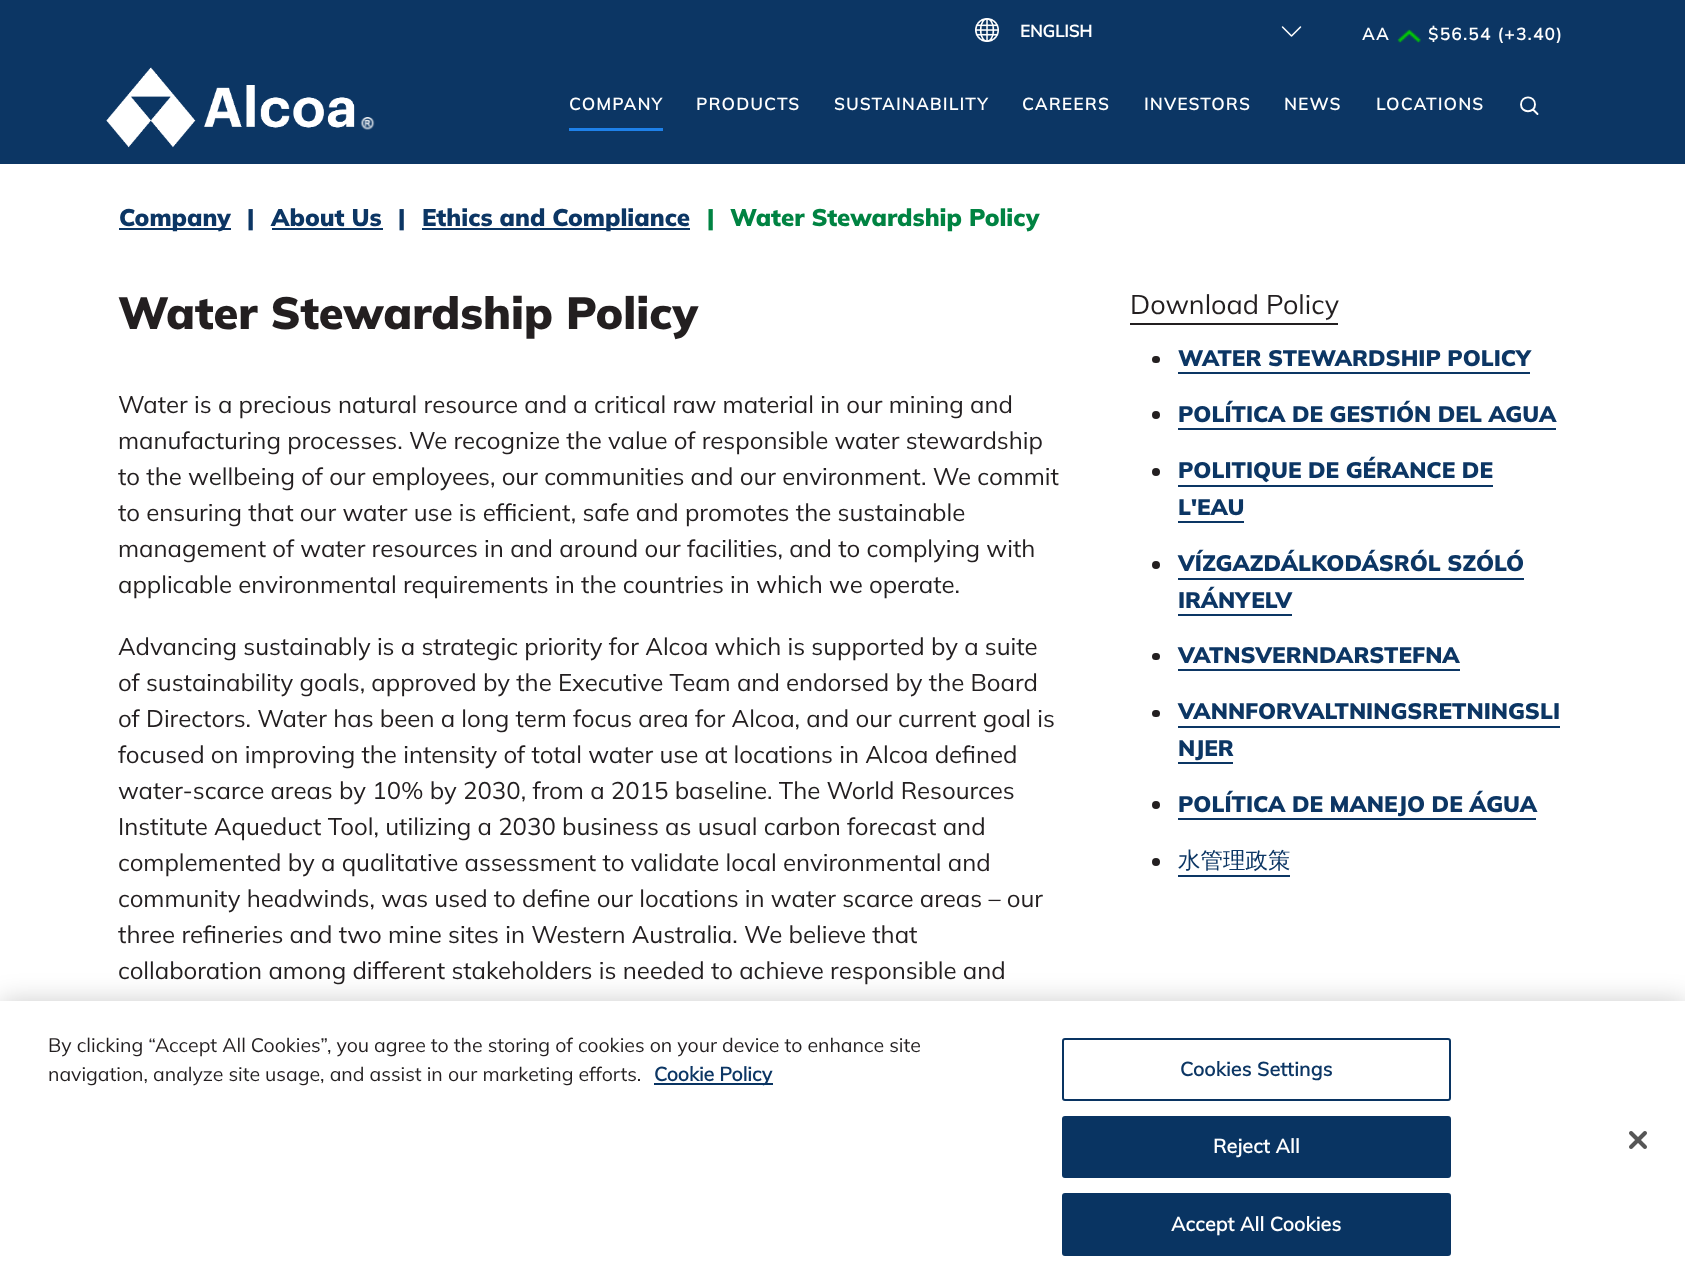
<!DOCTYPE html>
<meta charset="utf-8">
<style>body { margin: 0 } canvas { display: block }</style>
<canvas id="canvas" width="1685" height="1285"></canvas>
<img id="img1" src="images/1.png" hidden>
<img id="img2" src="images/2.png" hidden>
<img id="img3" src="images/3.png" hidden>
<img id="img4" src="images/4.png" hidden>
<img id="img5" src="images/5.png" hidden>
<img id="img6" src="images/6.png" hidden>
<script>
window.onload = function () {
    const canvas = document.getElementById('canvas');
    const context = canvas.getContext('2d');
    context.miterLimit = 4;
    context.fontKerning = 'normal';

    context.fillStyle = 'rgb(255, 255, 255)';
    context.fillRect(0, 0, 1685, 1285);
    context.fillStyle = 'rgb(12, 54, 100)';
    context.fillRect(0, 0, 1685, 164);
    context.drawImage(document.getElementById('img1'), 975, 18, 24, 24);
    context.drawImage(document.getElementById('img2'), 1281, 26, 21, 11);
    context.drawImage(document.getElementById('img3'), 1397, 29, 24, 14);
    context.drawImage(document.getElementById('img4'), 106, 67, 249, 81);
    context.drawImage(document.getElementById('img5'), 360, 117, 15, 13);
    context.fillStyle = 'rgb(30, 129, 234)';
    context.fillRect(569, 128, 94, 3);
    context.beginPath();
    context.moveTo(1533, 109.5);
    context.lineTo(1537.5, 114);
    context.moveTo(1535, 104.5);
    context.bezierCurveTo(1535, 113.5, 1521, 113.5, 1521, 104.5);
    context.bezierCurveTo(1521, 95, 1535, 95, 1535, 104.5);
    context.closePath();
    context.strokeStyle = 'rgb(255, 255, 255)';
    context.lineWidth = 1.9;
    context.lineCap = 'round';
    context.lineJoin = 'round';
    context.stroke();
    context.fillStyle = 'rgb(12, 54, 100)';
    context.fillRect(119, 228, 112, 2);
    context.fillRect(272, 228, 111, 2);
    context.fillRect(422, 228, 268, 2);
    context.fillStyle = 'rgb(35, 31, 32)';
    context.fillRect(1130, 323, 208, 2);
    context.beginPath();
    context.roundRect(1152, 356, 8, 7, 3.5);
    context.fill();
    context.fillStyle = 'rgb(12, 54, 100)';
    context.fillRect(1178, 372, 352, 2);
    context.fillStyle = 'rgb(35, 31, 32)';
    context.beginPath();
    context.arc(1156, 415, 4, 0, 2 * Math.PI);
    context.fill();
    context.fillStyle = 'rgb(12, 54, 100)';
    context.fillRect(1178, 428, 378, 2);
    context.fillStyle = 'rgb(35, 31, 32)';
    context.beginPath();
    context.arc(1156, 472, 4, 0, 2 * Math.PI);
    context.fill();
    context.fillStyle = 'rgb(12, 54, 100)';
    context.fillRect(1178, 485, 315, 2);
    context.fillRect(1178, 521, 66, 2);
    context.fillStyle = 'rgb(35, 31, 32)';
    context.beginPath();
    context.arc(1156, 565, 4, 0, 2 * Math.PI);
    context.fill();
    context.fillStyle = 'rgb(12, 54, 100)';
    context.fillRect(1178, 578, 346, 2);
    context.fillRect(1178, 614, 114, 2);
    context.fillStyle = 'rgb(35, 31, 32)';
    context.beginPath();
    context.roundRect(1152, 653, 8, 7, 3.5);
    context.fill();
    context.fillStyle = 'rgb(12, 54, 100)';
    context.fillRect(1178, 669, 282, 2);
    context.fillStyle = 'rgb(35, 31, 32)';
    context.beginPath();
    context.roundRect(1152, 710, 8, 7, 3.5);
    context.fill();
    context.fillStyle = 'rgb(12, 54, 100)';
    context.fillRect(1178, 726, 382, 2);
    context.fillRect(1178, 762, 55, 2);
    context.fillStyle = 'rgb(35, 31, 32)';
    context.beginPath();
    context.arc(1156, 805, 4, 0, 2 * Math.PI);
    context.fill();
    context.fillStyle = 'rgb(12, 54, 100)';
    context.fillRect(1178, 818, 358, 2);
    context.fillStyle = 'rgb(35, 31, 32)';
    context.beginPath();
    context.arc(1156, 862, 4, 0, 2 * Math.PI);
    context.fill();
    context.fillStyle = 'rgb(12, 54, 100)';
    context.fillRect(1178, 875, 112, 2);
    context.fillStyle = 'rgba(0, 0, 0, 0.2)';
    context.filter = 'blur(13.5px)';
    context.beginPath();
    context.rect(0, 1001, 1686, 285);
    context.fill();
    context.filter = 'none';
    context.fillStyle = 'rgb(255, 255, 255)';
    context.fillRect(0, 1001, 1685, 284);
    context.fillStyle = 'rgb(9, 52, 98)';
    context.fillRect(654, 1083, 119, 2);
    context.beginPath();
    context.roundRect(1063, 1039, 387, 61, 2);
    context.strokeStyle = 'rgb(9, 52, 98)';
    context.lineWidth = 2;
    context.lineJoin = 'miter';
    context.stroke();
    context.beginPath();
    context.roundRect(1063, 1117, 387, 60, 2);
    context.fill();
    context.stroke();
    context.beginPath();
    context.roundRect(1063, 1194, 387, 61, 2);
    context.fill();
    context.stroke();
    context.drawImage(document.getElementById('img6'), 1629, 1131, 18, 18);
    context.font = 'bold 16.9px "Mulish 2"';
    context.fillStyle = 'rgb(255, 255, 255)';
    context.fillText('ENGLISH', 1020, 37);
    context.letterSpacing = '1.5px';
    context.font = 'bold 16.9px Mulish';
    context.fillText('AA', 1362, 40);
    context.fillText('$56.54 (+3.40)', 1428, 40);
    context.fillText('COMPANY', 569, 110);
    context.fillText('PRODUCTS', 696, 110);
    context.fillText('SUSTAINABILITY', 834, 110);
    context.fillText('CAREERS', 1022, 110);
    context.fillText('INVESTORS', 1144, 110);
    context.fillText('NEWS', 1284, 110);
    context.fillText('LOCATIONS', 1376, 110);
    context.letterSpacing = '0px';
    context.font = '900 24px Mulish';
    context.fillStyle = 'rgb(12, 54, 100)';
    context.fillText('Company', 119, 226);
    context.fillText('|', 247, 226);
    context.fillText('About Us', 271, 226);
    context.fillText('|', 398, 226);
    context.fillText('Ethics and Compliance', 422, 226);
    context.fillStyle = 'rgb(0, 131, 66)';
    context.fillText('|', 707, 226);
    context.fillText('Water Stewardship Policy', 730, 226);
    context.font = '900 45px Mulish';
    context.fillStyle = 'rgb(35, 31, 32)';
    context.fillText('Water Stewardship Policy', 118, 329);
    context.font = '24px Mulish';
    context.fillText('Water is a precious natural resource and a critical raw material in our mining and', 118, 413);
    context.fillText('manufacturing processes. We recognize the value of responsible water stewardship', 118, 449);
    context.fillText('to the wellbeing of our employees, our communities and our environment. We commit', 118, 485);
    context.fillText('to ensuring that our water use is efficient, safe and promotes the sustainable', 118, 521);
    context.fillText('management of water resources in and around our facilities, and to complying with', 118, 557);
    context.fillText('applicable environmental requirements in the countries in which we operate.', 118, 593);
    context.fillText('Advancing sustainably is a strategic priority for Alcoa which is supported by a suite', 118, 655);
    context.fillText('of sustainability goals, approved by the Executive Team and endorsed by the Board', 118, 691);
    context.fillText('of Directors. Water has been a long term focus area for Alcoa, and our current goal is', 118, 727);
    context.fillText('focused on improving the intensity of total water use at locations in Alcoa defined', 118, 763);
    context.fillText('water-scarce areas by 10% by 2030, from a 2015 baseline. The World Resources', 118, 799);
    context.fillText('Institute Aqueduct Tool, utilizing a 2030 business as usual carbon forecast and', 118, 835);
    context.fillText('complemented by a qualitative assessment to validate local environmental and', 118, 871);
    context.fillText('community headwinds, was used to define our locations in water scarce areas – our', 118, 907);
    context.fillText('three refineries and two mine sites in Western Australia. We believe that', 118, 943);
    context.fillText('collaboration among different stakeholders is needed to achieve responsible and', 118, 979);
    context.font = '27px Mulish';
    context.fillText('Download Policy', 1130, 314);
    context.font = '900 22.5px Mulish';
    context.fillStyle = 'rgb(12, 54, 100)';
    context.fillText('WATER STEWARDSHIP POLICY', 1178, 366);
    context.fillText('POLÍTICA DE GESTIÓN DEL AGUA', 1178, 422);
    context.fillText('POLITIQUE DE GÉRANCE DE', 1178, 478);
    context.fillText('L\'EAU', 1178, 515);
    context.fillText('VÍZGAZDÁLKODÁSRÓL SZÓLÓ', 1178, 571);
    context.fillText('IRÁNYELV', 1178, 608);
    context.fillText('VATNSVERNDARSTEFNA', 1178, 663);
    context.fillText('VANNFORVALTNINGSRETNINGSLI', 1178, 719);
    context.fillText('NJER', 1178, 756);
    context.fillText('POLÍTICA DE MANEJO DE ÁGUA', 1178, 812);
    context.font = '500 22.5px WenQuanYi Zen Hei';
    context.fillText('水管理政策', 1178, 868);
    context.font = '19.5px Mulish';
    context.fillStyle = 'rgb(35, 31, 32)';
    context.fillText('By clicking “Accept All Cookies”, you agree to the storing of cookies on your device to enhance site', 48, 1052);
    context.fillText('navigation, analyze site usage, and assist in our marketing efforts.', 48, 1081);
    context.font = 'bold 19.5px Mulish';
    context.fillStyle = 'rgb(12, 54, 100)';
    context.fillText('Cookie Policy', 654, 1081);
    context.letterSpacing = '0.25px';
    context.fillText('Cookies Settings', 1180, 1076);
    context.fillStyle = 'rgb(255, 255, 255)';
    context.fillText('Reject All', 1213, 1153);
    context.fillText('Accept All Cookies', 1171, 1231);
};
</script>
